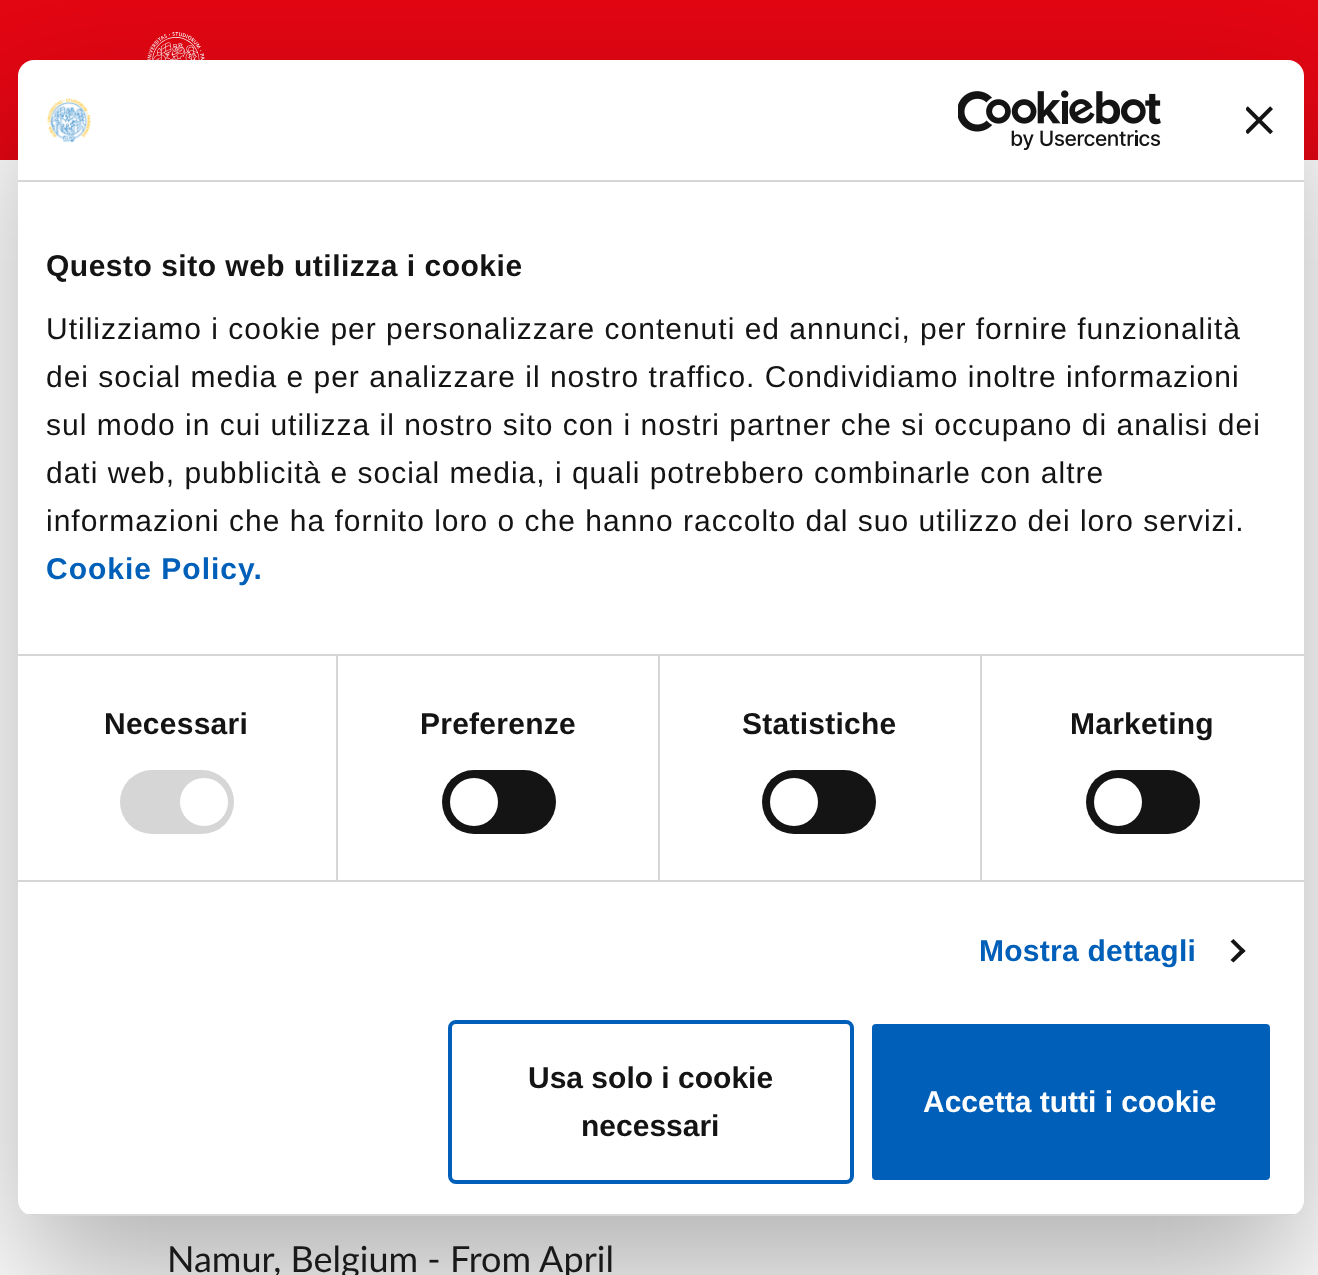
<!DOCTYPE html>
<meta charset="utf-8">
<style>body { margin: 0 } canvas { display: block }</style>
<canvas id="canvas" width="1318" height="1275"></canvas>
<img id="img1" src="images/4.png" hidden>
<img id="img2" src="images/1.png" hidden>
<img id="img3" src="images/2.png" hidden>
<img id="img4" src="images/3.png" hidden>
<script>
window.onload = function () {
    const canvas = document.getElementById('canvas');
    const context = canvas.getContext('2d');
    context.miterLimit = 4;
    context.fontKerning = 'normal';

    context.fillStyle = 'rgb(255, 255, 255)';
    context.fillRect(0, 0, 1318, 1275);
    context.fillStyle = 'rgb(227, 6, 19)';
    context.fillRect(0, 0, 1318, 160);
    context.drawImage(document.getElementById('img1'), 147, 32, 58, 28);
    context.fillStyle = 'rgba(0, 0, 0, 0.3)';
    context.filter = 'blur(68px)';
    context.beginPath();
    context.roundRect(18, 124, 1286, 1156, 16);
    context.fill();
    context.filter = 'none';
    context.fillStyle = 'rgb(255, 255, 255)';
    context.beginPath();
    context.roundRect(18, 60, 1286, 1156, 16);
    context.fill();
    context.fillStyle = 'rgb(214, 214, 214)';
    context.fillRect(18, 180, 1286, 2);
    context.drawImage(document.getElementById('img2'), 47, 98, 44, 45);
    context.drawImage(document.getElementById('img3'), 958, 90, 203, 60);
    context.drawImage(document.getElementById('img4'), 1246, 106, 27, 28);
    context.fillRect(18, 654, 1286, 2);
    context.fillRect(18, 880, 1286, 2);
    context.fillRect(336, 656, 2, 224);
    context.beginPath();
    context.roundRect(120, 770, 114, 64, 32);
    context.fill();
    context.fillStyle = 'rgb(255, 255, 255)';
    context.beginPath();
    context.arc(204, 802, 24, 0, 2 * Math.PI);
    context.fill();
    context.fillStyle = 'rgb(214, 214, 214)';
    context.fillRect(658, 656, 2, 224);
    context.fillStyle = 'rgb(20, 20, 20)';
    context.beginPath();
    context.roundRect(442, 770, 114, 64, 32);
    context.fill();
    context.fillStyle = 'rgb(255, 255, 255)';
    context.beginPath();
    context.arc(474, 802, 24, 0, 2 * Math.PI);
    context.fill();
    context.fillStyle = 'rgb(214, 214, 214)';
    context.fillRect(980, 656, 2, 224);
    context.fillStyle = 'rgb(20, 20, 20)';
    context.beginPath();
    context.roundRect(762, 770, 114, 64, 32);
    context.fill();
    context.fillStyle = 'rgb(255, 255, 255)';
    context.beginPath();
    context.arc(794, 802, 24, 0, 2 * Math.PI);
    context.fill();
    context.fillStyle = 'rgb(20, 20, 20)';
    context.beginPath();
    context.roundRect(1086, 770, 114, 64, 32);
    context.fill();
    context.fillStyle = 'rgb(255, 255, 255)';
    context.beginPath();
    context.arc(1118, 802, 24, 0, 2 * Math.PI);
    context.fill();
    context.fillStyle = 'rgb(20, 20, 20)';
    context.beginPath();
    context.moveTo(1233.5, 939);
    context.lineTo(1245.5, 951);
    context.lineTo(1242.5, 953.5);
    context.lineTo(1230.5, 941.5);
    context.closePath();
    context.fill();
    context.beginPath();
    context.moveTo(1242.5, 948);
    context.lineTo(1245.5, 951);
    context.lineTo(1233.5, 962.5);
    context.lineTo(1230.5, 960);
    context.closePath();
    context.fill();
    context.save();
    context.beginPath();
    context.roundRect(18, 60, 1286, 1156, 16);
    context.clip();
    context.fillStyle = 'rgb(214, 214, 214)';
    context.fillRect(18, 1214, 1286, 2);
    context.restore();
    context.beginPath();
    context.roundRect(450, 1022, 402, 160, 6);
    context.strokeStyle = 'rgb(0, 95, 184)';
    context.lineWidth = 4;
    context.stroke();
    context.fillStyle = 'rgb(0, 95, 184)';
    context.beginPath();
    context.roundRect(870, 1022, 402, 160, 6);
    context.fill();
    context.strokeStyle = 'rgb(255, 255, 255)';
    context.stroke();
    context.letterSpacing = '0.5px';
    context.font = 'bold 30px Liberation Sans';
    context.fillStyle = 'rgb(20, 20, 20)';
    context.fillText('Questo sito web utilizza i cookie', 46, 276);
    context.letterSpacing = '1px';
    context.font = '30px Liberation Sans';
    context.fillText('Utilizziamo i cookie per personalizzare contenuti ed annunci, per fornire funzionalità', 46, 339);
    context.fillText('dei social media e per analizzare il nostro traffico. Condividiamo inoltre informazioni', 46, 387);
    context.fillText('sul modo in cui utilizza il nostro sito con i nostri partner che si occupano di analisi dei', 46, 435);
    context.fillText('dati web, pubblicità e social media, i quali potrebbero combinarle con altre', 46, 483);
    context.fillText('informazioni che ha fornito loro o che hanno raccolto dal suo utilizzo dei loro servizi.', 46, 531);
    context.font = 'bold 30px Liberation Sans';
    context.fillStyle = 'rgb(0, 95, 184)';
    context.fillText('Cookie Policy.', 46, 579);
    context.letterSpacing = '0.25px';
    context.fillStyle = 'rgb(20, 20, 20)';
    context.fillText('Necessari', 104, 734);
    context.fillText('Preferenze', 420, 734);
    context.fillText('Statistiche', 742, 734);
    context.fillText('Marketing', 1070, 734);
    context.fillStyle = 'rgb(0, 95, 184)';
    context.fillText('Mostra dettagli', 979, 961);
    context.letterSpacing = '0px';
    context.fillStyle = 'rgb(20, 20, 20)';
    context.fillText('Usa solo i cookie', 528, 1088);
    context.fillText('necessari', 581, 1136);
    context.fillStyle = 'rgb(255, 255, 255)';
    context.fillText('Accetta tutti i cookie', 923, 1112);
    context.font = '36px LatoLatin';
    context.fillStyle = 'rgb(25, 25, 26)';
    context.fillText('Namur, Belgium - From April', 167, 1272);
};
</script>
